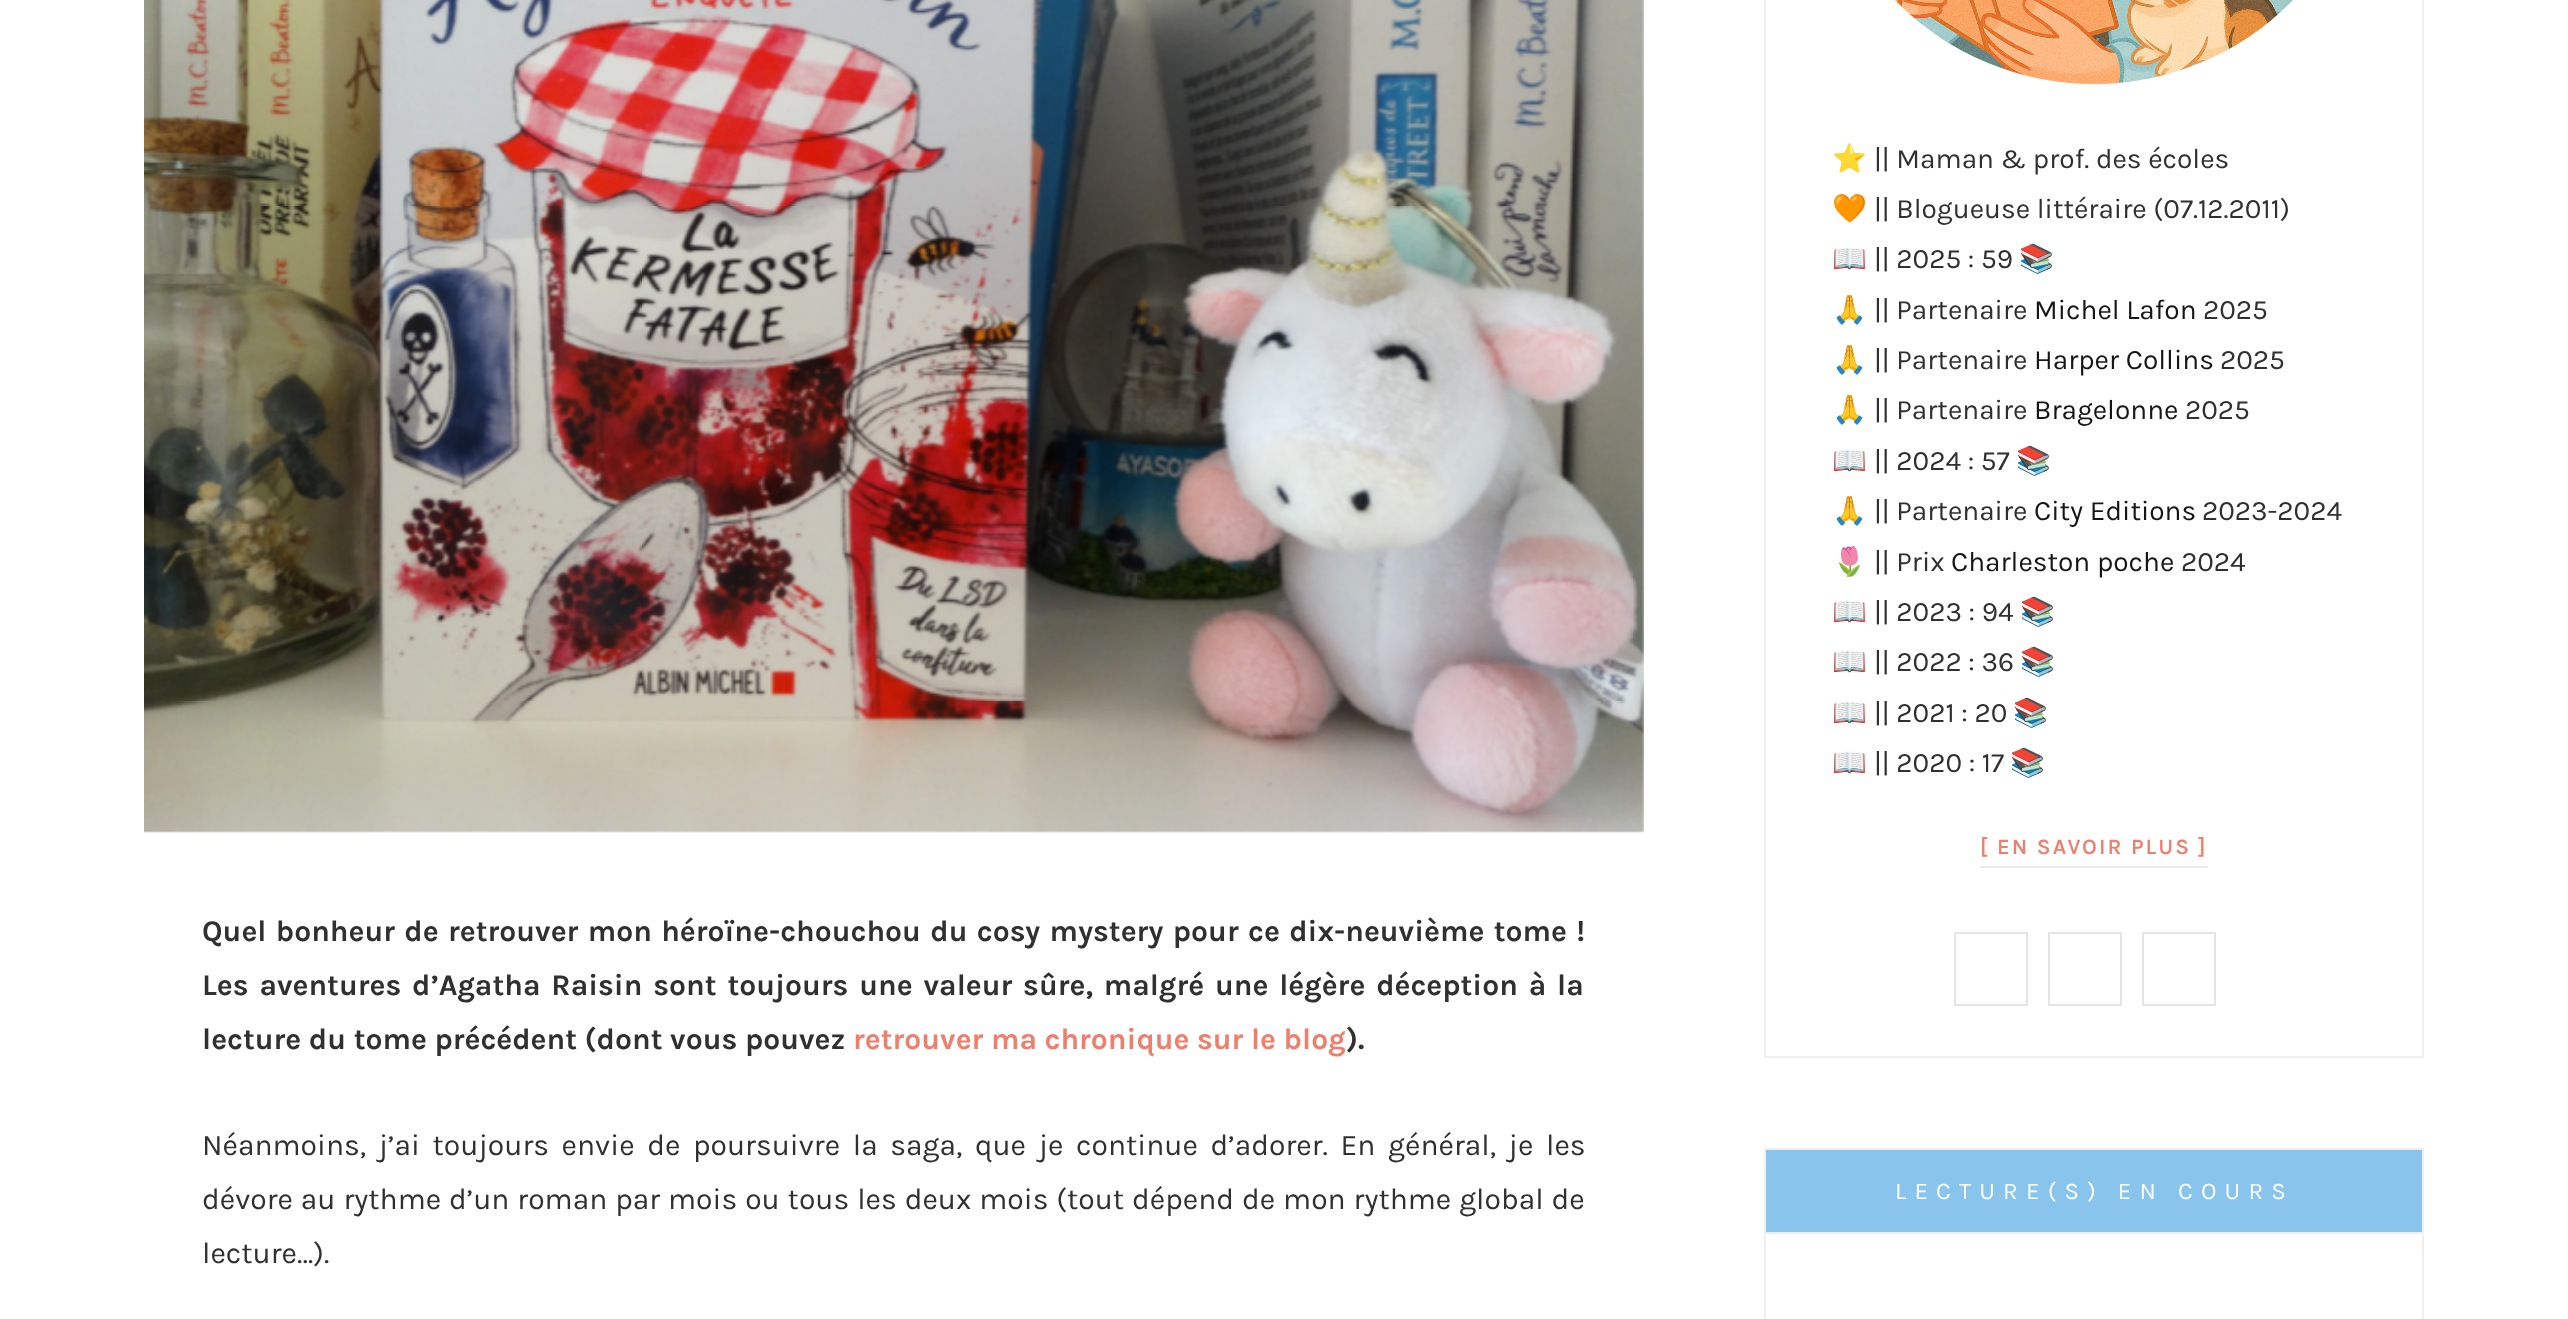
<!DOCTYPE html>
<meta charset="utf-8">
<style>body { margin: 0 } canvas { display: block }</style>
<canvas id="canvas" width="2568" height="1319"></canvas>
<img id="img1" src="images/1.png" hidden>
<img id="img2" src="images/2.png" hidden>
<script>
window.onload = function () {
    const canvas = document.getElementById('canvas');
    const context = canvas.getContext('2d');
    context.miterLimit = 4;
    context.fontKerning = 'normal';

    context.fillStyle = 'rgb(255, 255, 255)';
    context.fillRect(0, 0, 2568, 1319);
    context.drawImage(document.getElementById('img1'), 144, 0, 1500, 833);
    context.strokeStyle = 'rgb(239, 239, 239)';
    context.lineWidth = 2;
    context.strokeRect(1765, -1, 658, 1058);
    context.drawImage(document.getElementById('img2'), 1895, 0, 398, 84);
    context.fillStyle = 'rgb(235, 235, 235)';
    context.fillRect(1980, 866, 228, 2);
    context.strokeStyle = 'rgb(228, 228, 228)';
    context.strokeRect(1955, 933, 72, 72);
    context.strokeRect(2049, 933, 72, 72);
    context.strokeRect(2143, 933, 72, 72);
    context.strokeStyle = 'rgb(239, 239, 239)';
    context.strokeRect(1765, 1149, 658, 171);
    context.fillStyle = 'rgb(137, 196, 236)';
    context.beginPath();
    context.rect(1765, 1149, 658, 84);
    context.fill();
    context.stroke();
    context.wordSpacing = '1.75px';
    context.font = 'bold 30px Karla';
    context.fillStyle = 'rgb(48, 48, 48)';
    context.fillText('Quel bonheur de retrouver mon héroïne-chouchou du cosy mystery pour ce dix-neuvième tome !', 202, 941);
    context.wordSpacing = '3.25px';
    context.fillText('Les aventures d’Agatha Raisin sont toujours une valeur sûre, malgré une légère déception à la', 202, 995);
    context.wordSpacing = '0px';
    context.fillText('lecture du tome précédent (dont vous pouvez', 202, 1049);
    context.fillStyle = 'rgb(239, 126, 107)';
    context.fillText('retrouver ma chronique sur le blog', 853, 1049);
    context.fillStyle = 'rgb(48, 48, 48)';
    context.fillText(').', 1346, 1049);
    context.wordSpacing = '5.5px';
    context.font = '30px Karla';
    context.fillText('Néanmoins, j’ai toujours envie de poursuivre la saga, que je continue d’adorer. En général, je les', 202, 1155);
    context.wordSpacing = '0.8px';
    context.fillText('dévore au rythme d’un roman par mois ou tous les deux mois (tout dépend de mon rythme global de', 202, 1209);
    context.wordSpacing = '0px';
    context.fillText('lecture…).', 202, 1263);
    context.font = '28px Noto Color Emoji';
    context.fillText('⭐', 1832, 168);
    context.font = '28px Karla';
    context.fillText('|| Maman & prof. des écoles', 1874, 168);
    context.font = '28px Noto Color Emoji';
    context.fillText('🧡', 1832, 218);
    context.font = '28px Karla';
    context.fillText('|| Blogueuse littéraire (07.12.2011)', 1874, 218);
    context.font = '28px Noto Color Emoji';
    context.fillText('📖', 1832, 268);
    context.font = '28px Karla';
    context.fillText('|| 2025 : 59', 1874, 268);
    context.font = '28px Noto Color Emoji';
    context.fillText('📚', 2019, 268);
    context.fillText('🙏', 1832, 319);
    context.font = '28px Karla';
    context.fillText('|| Partenaire', 1874, 319);
    context.fillStyle = 'rgb(22, 22, 22)';
    context.fillText('Michel Lafon', 2034, 319);
    context.fillStyle = 'rgb(48, 48, 48)';
    context.fillText('2025', 2203, 319);
    context.font = '28px Noto Color Emoji';
    context.fillText('🙏', 1832, 369);
    context.font = '28px Karla';
    context.fillText('|| Partenaire', 1874, 369);
    context.fillStyle = 'rgb(22, 22, 22)';
    context.fillText('Harper Collins', 2034, 369);
    context.fillStyle = 'rgb(48, 48, 48)';
    context.fillText('2025', 2220, 369);
    context.font = '28px Noto Color Emoji';
    context.fillText('🙏', 1832, 419);
    context.font = '28px Karla';
    context.fillText('|| Partenaire', 1874, 419);
    context.fillStyle = 'rgb(22, 22, 22)';
    context.fillText('Bragelonne', 2034, 419);
    context.fillStyle = 'rgb(48, 48, 48)';
    context.fillText('2025', 2185, 419);
    context.font = '28px Noto Color Emoji';
    context.fillText('📖', 1832, 470);
    context.font = '28px Karla';
    context.fillText('|| 2024 : 57', 1874, 470);
    context.font = '28px Noto Color Emoji';
    context.fillText('📚', 2016, 470);
    context.fillText('🙏', 1832, 520);
    context.font = '28px Karla';
    context.fillText('|| Partenaire', 1874, 520);
    context.fillStyle = 'rgb(22, 22, 22)';
    context.fillText('City Editions', 2034, 520);
    context.fillStyle = 'rgb(48, 48, 48)';
    context.fillText('2023-2024', 2202, 520);
    context.font = '28px Noto Color Emoji';
    context.fillText('🌷', 1832, 571);
    context.font = '28px Karla';
    context.fillText('|| Prix', 1874, 571);
    context.fillStyle = 'rgb(22, 22, 22)';
    context.fillText('Charleston poche', 1951, 571);
    context.fillStyle = 'rgb(48, 48, 48)';
    context.fillText('2024', 2181, 571);
    context.font = '28px Noto Color Emoji';
    context.fillText('📖', 1832, 621);
    context.font = '28px Karla';
    context.fillText('|| 2023 : 94', 1874, 621);
    context.font = '28px Noto Color Emoji';
    context.fillText('📚', 2020, 621);
    context.fillText('📖', 1832, 671);
    context.font = '28px Karla';
    context.fillText('|| 2022 : 36', 1874, 671);
    context.font = '28px Noto Color Emoji';
    context.fillText('📚', 2020, 671);
    context.fillText('📖', 1832, 722);
    context.font = '28px Karla';
    context.fillText('|| 2021 : 20', 1874, 722);
    context.font = '28px Noto Color Emoji';
    context.fillText('📚', 2013, 722);
    context.fillText('📖', 1832, 772);
    context.font = '28px Karla';
    context.fillText('|| 2020 : 17', 1874, 772);
    context.font = '28px Noto Color Emoji';
    context.fillText('📚', 2010, 772);
    context.letterSpacing = '2px';
    context.font = '600 22px Karla';
    context.fillStyle = 'rgb(239, 126, 107)';
    context.fillText('[ EN SAVOIR PLUS ]', 1980, 854);
    context.letterSpacing = '8.2px';
    context.font = '24px Karla';
    context.fillStyle = 'rgb(255, 255, 255)';
    context.fillText('LECTURE(S) EN COURS', 1895, 1199);
};
</script>
